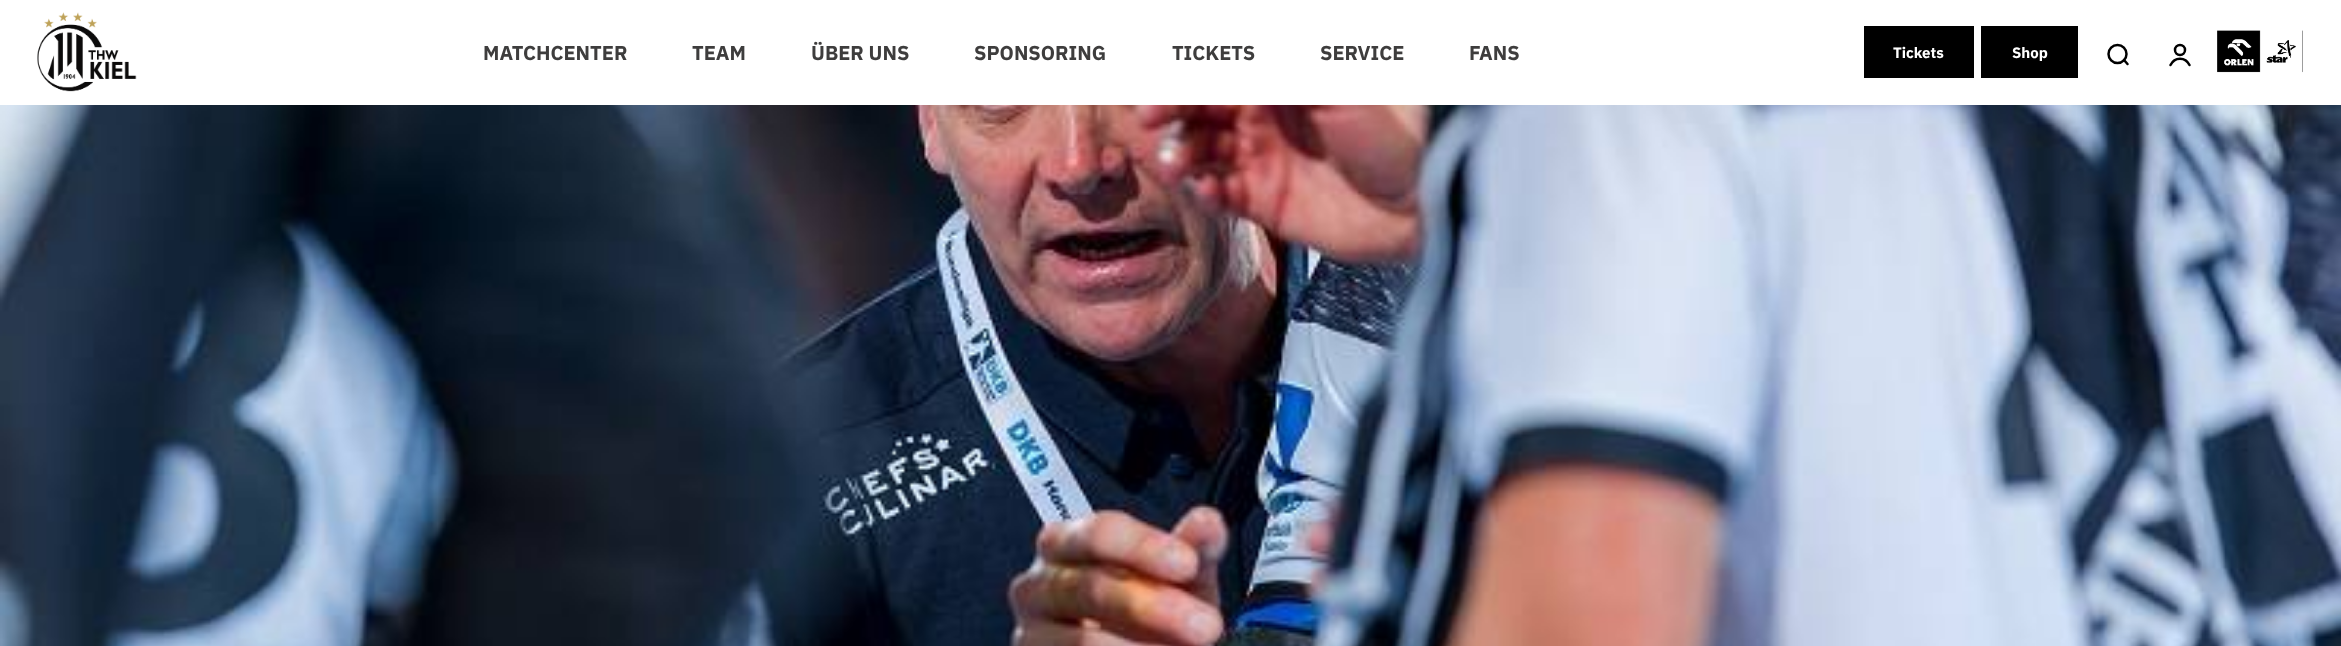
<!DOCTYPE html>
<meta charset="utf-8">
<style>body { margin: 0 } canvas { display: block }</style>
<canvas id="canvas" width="2341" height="646"></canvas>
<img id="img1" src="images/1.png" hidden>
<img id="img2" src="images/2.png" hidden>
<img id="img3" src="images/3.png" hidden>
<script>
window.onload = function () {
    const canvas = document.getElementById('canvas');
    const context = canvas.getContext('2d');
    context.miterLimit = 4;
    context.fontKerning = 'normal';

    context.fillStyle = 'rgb(255, 255, 255)';
    context.fillRect(0, 0, 2341, 646);
    context.drawImage(document.getElementById('img1'), 37, 12, 100, 80);
    context.fillStyle = 'rgb(0, 0, 0)';
    context.fillRect(1864, 26, 110, 52);
    context.fillRect(1981, 26, 97, 52);
    context.beginPath();
    context.arc(2117.5, 54, 9, 0, 2 * Math.PI);
    context.strokeStyle = 'rgb(0, 0, 0)';
    context.lineWidth = 2.5;
    context.stroke();
    context.beginPath();
    context.moveTo(2124, 60);
    context.lineTo(2127.5, 64);
    context.lineCap = 'round';
    context.lineJoin = 'round';
    context.stroke();
    context.beginPath();
    context.arc(2180, 50, 5, 0, 2 * Math.PI);
    context.stroke();
    context.beginPath();
    context.moveTo(2170.5, 65);
    context.bezierCurveTo(2174.5, 56.5, 2185.5, 56.5, 2189.5, 65);
    context.lineJoin = 'miter';
    context.stroke();
    context.drawImage(document.getElementById('img2'), 2217, 30, 86, 43);
    context.drawImage(document.getElementById('img3'), 0, 105, 2341, 541);
    context.font = 'bold 20px IBM Plex Sans';
    context.fillStyle = 'rgb(62, 61, 61)';
    context.fillText('MATCHCENTER', 483, 60);
    context.fillText('TEAM', 692, 60);
    context.fillText('ÜBER UNS', 811, 60);
    context.fillText('SPONSORING', 974, 60);
    context.fillText('TICKETS', 1172, 60);
    context.fillText('SERVICE', 1320, 60);
    context.fillText('FANS', 1469, 60);
    context.font = 'bold 15px IBM Plex Sans';
    context.fillStyle = 'rgb(255, 255, 255)';
    context.fillText('Tickets', 1893, 58);
    context.fillText('Shop', 2012, 58);
};
</script>
